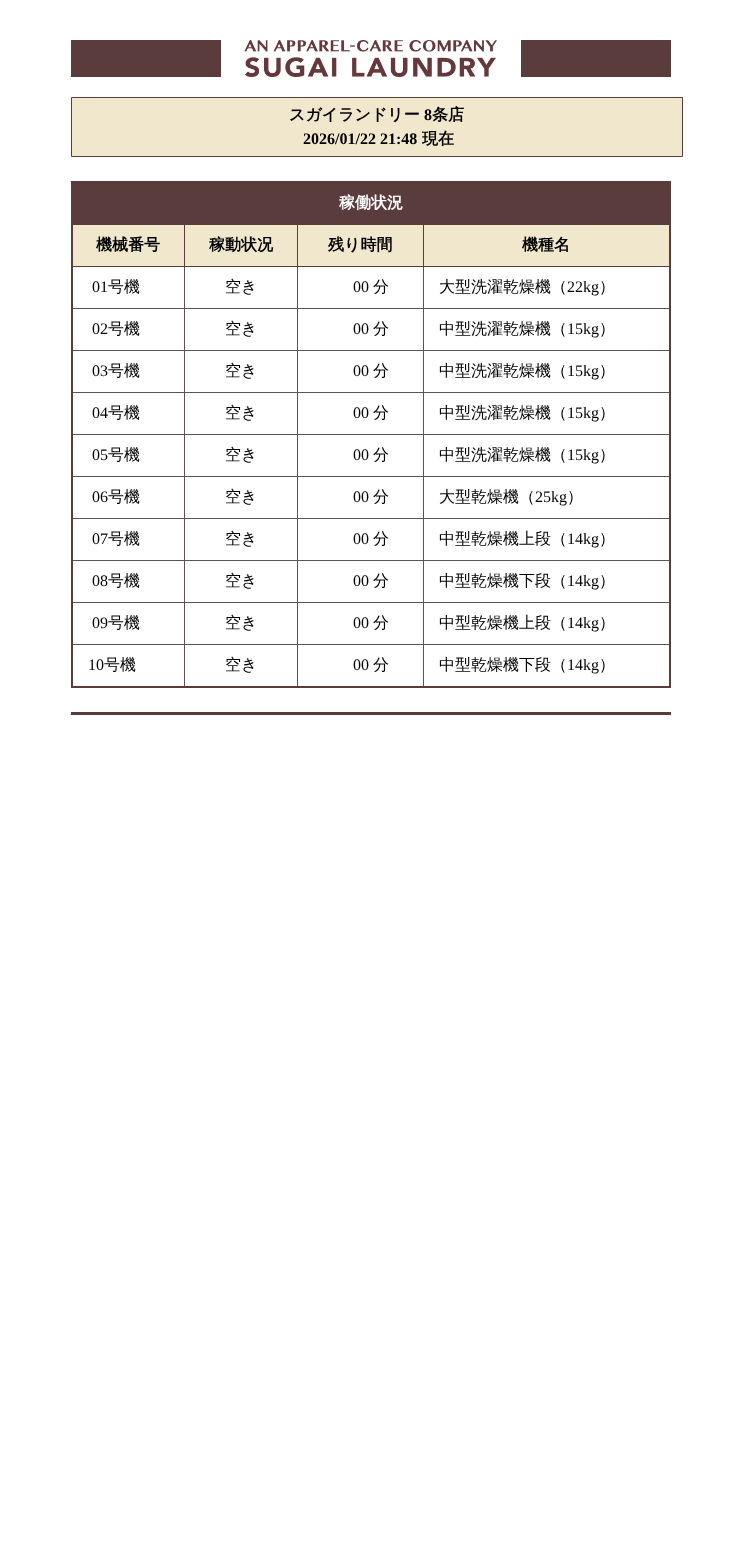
<!DOCTYPE html>
<meta charset="utf-8">
<style>body { margin: 0 } canvas { display: block }</style>
<canvas id="canvas" width="741" height="1561"></canvas>
<img id="img1" src="images/1.png" hidden>
<script>
window.onload = function () {
    const canvas = document.getElementById('canvas');
    const context = canvas.getContext('2d');
    context.miterLimit = 4;
    context.fontKerning = 'normal';

    context.fillStyle = 'rgb(255, 255, 255)';
    context.fillRect(0, 0, 741, 1561);
    context.fillStyle = 'rgb(91, 60, 61)';
    context.fillRect(71, 40, 600, 37);
    context.drawImage(document.getElementById('img1'), 221, 40, 300, 37);
    context.fillStyle = 'rgb(241, 231, 205)';
    context.beginPath();
    context.rect(71.5, 97.5, 611, 59);
    context.fill();
    context.strokeStyle = 'rgb(91, 60, 61)';
    context.stroke();
    context.fillStyle = 'rgb(91, 60, 61)';
    context.fillRect(71, 181, 600, 2);
    context.fillStyle = 'rgb(96, 81, 82)';
    context.fillRect(423, 308, 247, 1);
    context.fillRect(423, 350, 247, 1);
    context.fillRect(423, 392, 247, 1);
    context.fillRect(423, 434, 247, 1);
    context.fillRect(423, 476, 247, 1);
    context.fillRect(423, 518, 247, 1);
    context.fillRect(423, 560, 247, 1);
    context.fillRect(423, 602, 247, 1);
    context.fillRect(423, 644, 247, 1);
    context.fillRect(423, 644, 1, 44);
    context.fillRect(297, 644, 127, 1);
    context.fillRect(423, 602, 1, 43);
    context.fillRect(297, 602, 127, 1);
    context.fillRect(423, 560, 1, 43);
    context.fillRect(297, 560, 127, 1);
    context.fillRect(423, 518, 1, 43);
    context.fillRect(297, 518, 127, 1);
    context.fillRect(423, 476, 1, 43);
    context.fillRect(297, 476, 127, 1);
    context.fillRect(423, 434, 1, 43);
    context.fillRect(297, 434, 127, 1);
    context.fillRect(423, 392, 1, 43);
    context.fillRect(297, 392, 127, 1);
    context.fillRect(423, 350, 1, 43);
    context.fillRect(297, 350, 127, 1);
    context.fillRect(423, 308, 1, 43);
    context.fillRect(297, 308, 127, 1);
    context.fillRect(423, 266, 1, 43);
    context.fillStyle = 'rgb(91, 60, 61)';
    context.fillRect(423, 266, 247, 1);
    context.fillRect(669, 181, 2, 507);
    context.fillStyle = 'rgb(96, 81, 82)';
    context.fillRect(297, 644, 1, 44);
    context.fillRect(184, 644, 114, 1);
    context.fillRect(184, 644, 1, 44);
    context.fillStyle = 'rgb(91, 60, 61)';
    context.fillRect(71, 686, 600, 2);
    context.fillRect(71, 224, 2, 1);
    context.fillRect(73, 183, 596, 42);
    context.fillRect(423, 224, 1, 43);
    context.fillStyle = 'rgb(96, 81, 82)';
    context.fillRect(297, 602, 1, 43);
    context.fillRect(184, 602, 114, 1);
    context.fillRect(297, 560, 1, 43);
    context.fillRect(184, 560, 114, 1);
    context.fillRect(297, 518, 1, 43);
    context.fillRect(184, 518, 114, 1);
    context.fillRect(297, 476, 1, 43);
    context.fillRect(184, 476, 114, 1);
    context.fillRect(297, 434, 1, 43);
    context.fillRect(184, 434, 114, 1);
    context.fillRect(297, 392, 1, 43);
    context.fillRect(184, 392, 114, 1);
    context.fillRect(297, 350, 1, 43);
    context.fillRect(184, 350, 114, 1);
    context.fillRect(297, 308, 1, 43);
    context.fillRect(184, 308, 114, 1);
    context.fillRect(297, 266, 1, 43);
    context.fillStyle = 'rgb(91, 60, 61)';
    context.fillRect(297, 266, 127, 1);
    context.fillRect(297, 224, 1, 43);
    context.fillStyle = 'rgb(96, 81, 82)';
    context.fillRect(71, 644, 114, 1);
    context.fillRect(184, 602, 1, 43);
    context.fillRect(71, 602, 114, 1);
    context.fillRect(184, 560, 1, 43);
    context.fillRect(71, 560, 114, 1);
    context.fillRect(184, 518, 1, 43);
    context.fillRect(71, 518, 114, 1);
    context.fillRect(184, 476, 1, 43);
    context.fillRect(71, 476, 114, 1);
    context.fillRect(184, 434, 1, 43);
    context.fillRect(71, 434, 114, 1);
    context.fillRect(184, 392, 1, 43);
    context.fillRect(71, 392, 114, 1);
    context.fillRect(184, 350, 1, 43);
    context.fillRect(71, 350, 114, 1);
    context.fillRect(184, 308, 1, 43);
    context.fillRect(71, 308, 114, 1);
    context.fillRect(184, 266, 1, 43);
    context.fillStyle = 'rgb(91, 60, 61)';
    context.fillRect(184, 266, 114, 1);
    context.fillRect(184, 224, 1, 43);
    context.fillRect(71, 266, 114, 1);
    context.fillRect(71, 181, 2, 507);
    context.fillStyle = 'rgb(241, 231, 205)';
    context.fillRect(73, 225, 111, 41);
    context.fillRect(185, 225, 112, 41);
    context.fillRect(298, 225, 125, 41);
    context.fillRect(424, 225, 245, 41);
    context.fillStyle = 'rgb(91, 60, 61)';
    context.fillRect(71, 712, 600, 3);
    context.font = 'bold 16px WenQuanYi Zen Hei';
    context.fillStyle = 'rgb(0, 0, 0)';
    context.fillText('スガイランドリー', 289, 120);
    context.font = 'bold 16px Liberation Serif';
    context.fillText('8', 424, 120);
    context.font = 'bold 16px WenQuanYi Zen Hei';
    context.fillText('条店', 432, 120);
    context.font = 'bold 16px Liberation Serif';
    context.fillText('2026/01/22 21:48', 303, 144);
    context.font = 'bold 16px WenQuanYi Zen Hei';
    context.fillText('現在', 422, 144);
    context.fillStyle = 'rgb(255, 255, 255)';
    context.fillText('稼働状況', 339, 208);
    context.fillStyle = 'rgb(0, 0, 0)';
    context.fillText('機械番号', 96, 250);
    context.fillText('稼動状况', 209, 250);
    context.fillText('残り時間', 328, 250);
    context.fillText('機種名', 522, 250);
    context.font = '16px Liberation Serif';
    context.fillText('01', 92, 292);
    context.font = '500 16px WenQuanYi Zen Hei';
    context.fillText('号機', 108, 292);
    context.fillText('空き', 225, 292);
    context.font = '16px Liberation Serif';
    context.fillText('00', 353, 292);
    context.font = '500 16px WenQuanYi Zen Hei';
    context.fillText('分', 373, 292);
    context.fillText('大型洗濯乾燥機（', 439, 292);
    context.font = '16px Liberation Serif';
    context.fillText('22kg', 567, 292);
    context.font = '500 16px WenQuanYi Zen Hei';
    context.fillText('）', 599, 292);
    context.font = '16px Liberation Serif';
    context.fillText('02', 92, 334);
    context.font = '500 16px WenQuanYi Zen Hei';
    context.fillText('号機', 108, 334);
    context.fillText('空き', 225, 334);
    context.font = '16px Liberation Serif';
    context.fillText('00', 353, 334);
    context.font = '500 16px WenQuanYi Zen Hei';
    context.fillText('分', 373, 334);
    context.fillText('中型洗濯乾燥機（', 439, 334);
    context.font = '16px Liberation Serif';
    context.fillText('15kg', 567, 334);
    context.font = '500 16px WenQuanYi Zen Hei';
    context.fillText('）', 599, 334);
    context.font = '16px Liberation Serif';
    context.fillText('03', 92, 376);
    context.font = '500 16px WenQuanYi Zen Hei';
    context.fillText('号機', 108, 376);
    context.fillText('空き', 225, 376);
    context.font = '16px Liberation Serif';
    context.fillText('00', 353, 376);
    context.font = '500 16px WenQuanYi Zen Hei';
    context.fillText('分', 373, 376);
    context.fillText('中型洗濯乾燥機（', 439, 376);
    context.font = '16px Liberation Serif';
    context.fillText('15kg', 567, 376);
    context.font = '500 16px WenQuanYi Zen Hei';
    context.fillText('）', 599, 376);
    context.font = '16px Liberation Serif';
    context.fillText('04', 92, 418);
    context.font = '500 16px WenQuanYi Zen Hei';
    context.fillText('号機', 108, 418);
    context.fillText('空き', 225, 418);
    context.font = '16px Liberation Serif';
    context.fillText('00', 353, 418);
    context.font = '500 16px WenQuanYi Zen Hei';
    context.fillText('分', 373, 418);
    context.fillText('中型洗濯乾燥機（', 439, 418);
    context.font = '16px Liberation Serif';
    context.fillText('15kg', 567, 418);
    context.font = '500 16px WenQuanYi Zen Hei';
    context.fillText('）', 599, 418);
    context.font = '16px Liberation Serif';
    context.fillText('05', 92, 460);
    context.font = '500 16px WenQuanYi Zen Hei';
    context.fillText('号機', 108, 460);
    context.fillText('空き', 225, 460);
    context.font = '16px Liberation Serif';
    context.fillText('00', 353, 460);
    context.font = '500 16px WenQuanYi Zen Hei';
    context.fillText('分', 373, 460);
    context.fillText('中型洗濯乾燥機（', 439, 460);
    context.font = '16px Liberation Serif';
    context.fillText('15kg', 567, 460);
    context.font = '500 16px WenQuanYi Zen Hei';
    context.fillText('）', 599, 460);
    context.font = '16px Liberation Serif';
    context.fillText('06', 92, 502);
    context.font = '500 16px WenQuanYi Zen Hei';
    context.fillText('号機', 108, 502);
    context.fillText('空き', 225, 502);
    context.font = '16px Liberation Serif';
    context.fillText('00', 353, 502);
    context.font = '500 16px WenQuanYi Zen Hei';
    context.fillText('分', 373, 502);
    context.fillText('大型乾燥機（', 439, 502);
    context.font = '16px Liberation Serif';
    context.fillText('25kg', 535, 502);
    context.font = '500 16px WenQuanYi Zen Hei';
    context.fillText('）', 567, 502);
    context.font = '16px Liberation Serif';
    context.fillText('07', 92, 544);
    context.font = '500 16px WenQuanYi Zen Hei';
    context.fillText('号機', 108, 544);
    context.fillText('空き', 225, 544);
    context.font = '16px Liberation Serif';
    context.fillText('00', 353, 544);
    context.font = '500 16px WenQuanYi Zen Hei';
    context.fillText('分', 373, 544);
    context.fillText('中型乾燥機上段（', 439, 544);
    context.font = '16px Liberation Serif';
    context.fillText('14kg', 567, 544);
    context.font = '500 16px WenQuanYi Zen Hei';
    context.fillText('）', 599, 544);
    context.font = '16px Liberation Serif';
    context.fillText('08', 92, 586);
    context.font = '500 16px WenQuanYi Zen Hei';
    context.fillText('号機', 108, 586);
    context.fillText('空き', 225, 586);
    context.font = '16px Liberation Serif';
    context.fillText('00', 353, 586);
    context.font = '500 16px WenQuanYi Zen Hei';
    context.fillText('分', 373, 586);
    context.fillText('中型乾燥機下段（', 439, 586);
    context.font = '16px Liberation Serif';
    context.fillText('14kg', 567, 586);
    context.font = '500 16px WenQuanYi Zen Hei';
    context.fillText('）', 599, 586);
    context.font = '16px Liberation Serif';
    context.fillText('09', 92, 628);
    context.font = '500 16px WenQuanYi Zen Hei';
    context.fillText('号機', 108, 628);
    context.fillText('空き', 225, 628);
    context.font = '16px Liberation Serif';
    context.fillText('00', 353, 628);
    context.font = '500 16px WenQuanYi Zen Hei';
    context.fillText('分', 373, 628);
    context.fillText('中型乾燥機上段（', 439, 628);
    context.font = '16px Liberation Serif';
    context.fillText('14kg', 567, 628);
    context.font = '500 16px WenQuanYi Zen Hei';
    context.fillText('）', 599, 628);
    context.font = '16px Liberation Serif';
    context.fillText('10', 88, 670);
    context.font = '500 16px WenQuanYi Zen Hei';
    context.fillText('号機', 104, 670);
    context.fillText('空き', 225, 670);
    context.font = '16px Liberation Serif';
    context.fillText('00', 353, 670);
    context.font = '500 16px WenQuanYi Zen Hei';
    context.fillText('分', 373, 670);
    context.fillText('中型乾燥機下段（', 439, 670);
    context.font = '16px Liberation Serif';
    context.fillText('14kg', 567, 670);
    context.font = '500 16px WenQuanYi Zen Hei';
    context.fillText('）', 599, 670);
};
</script>
